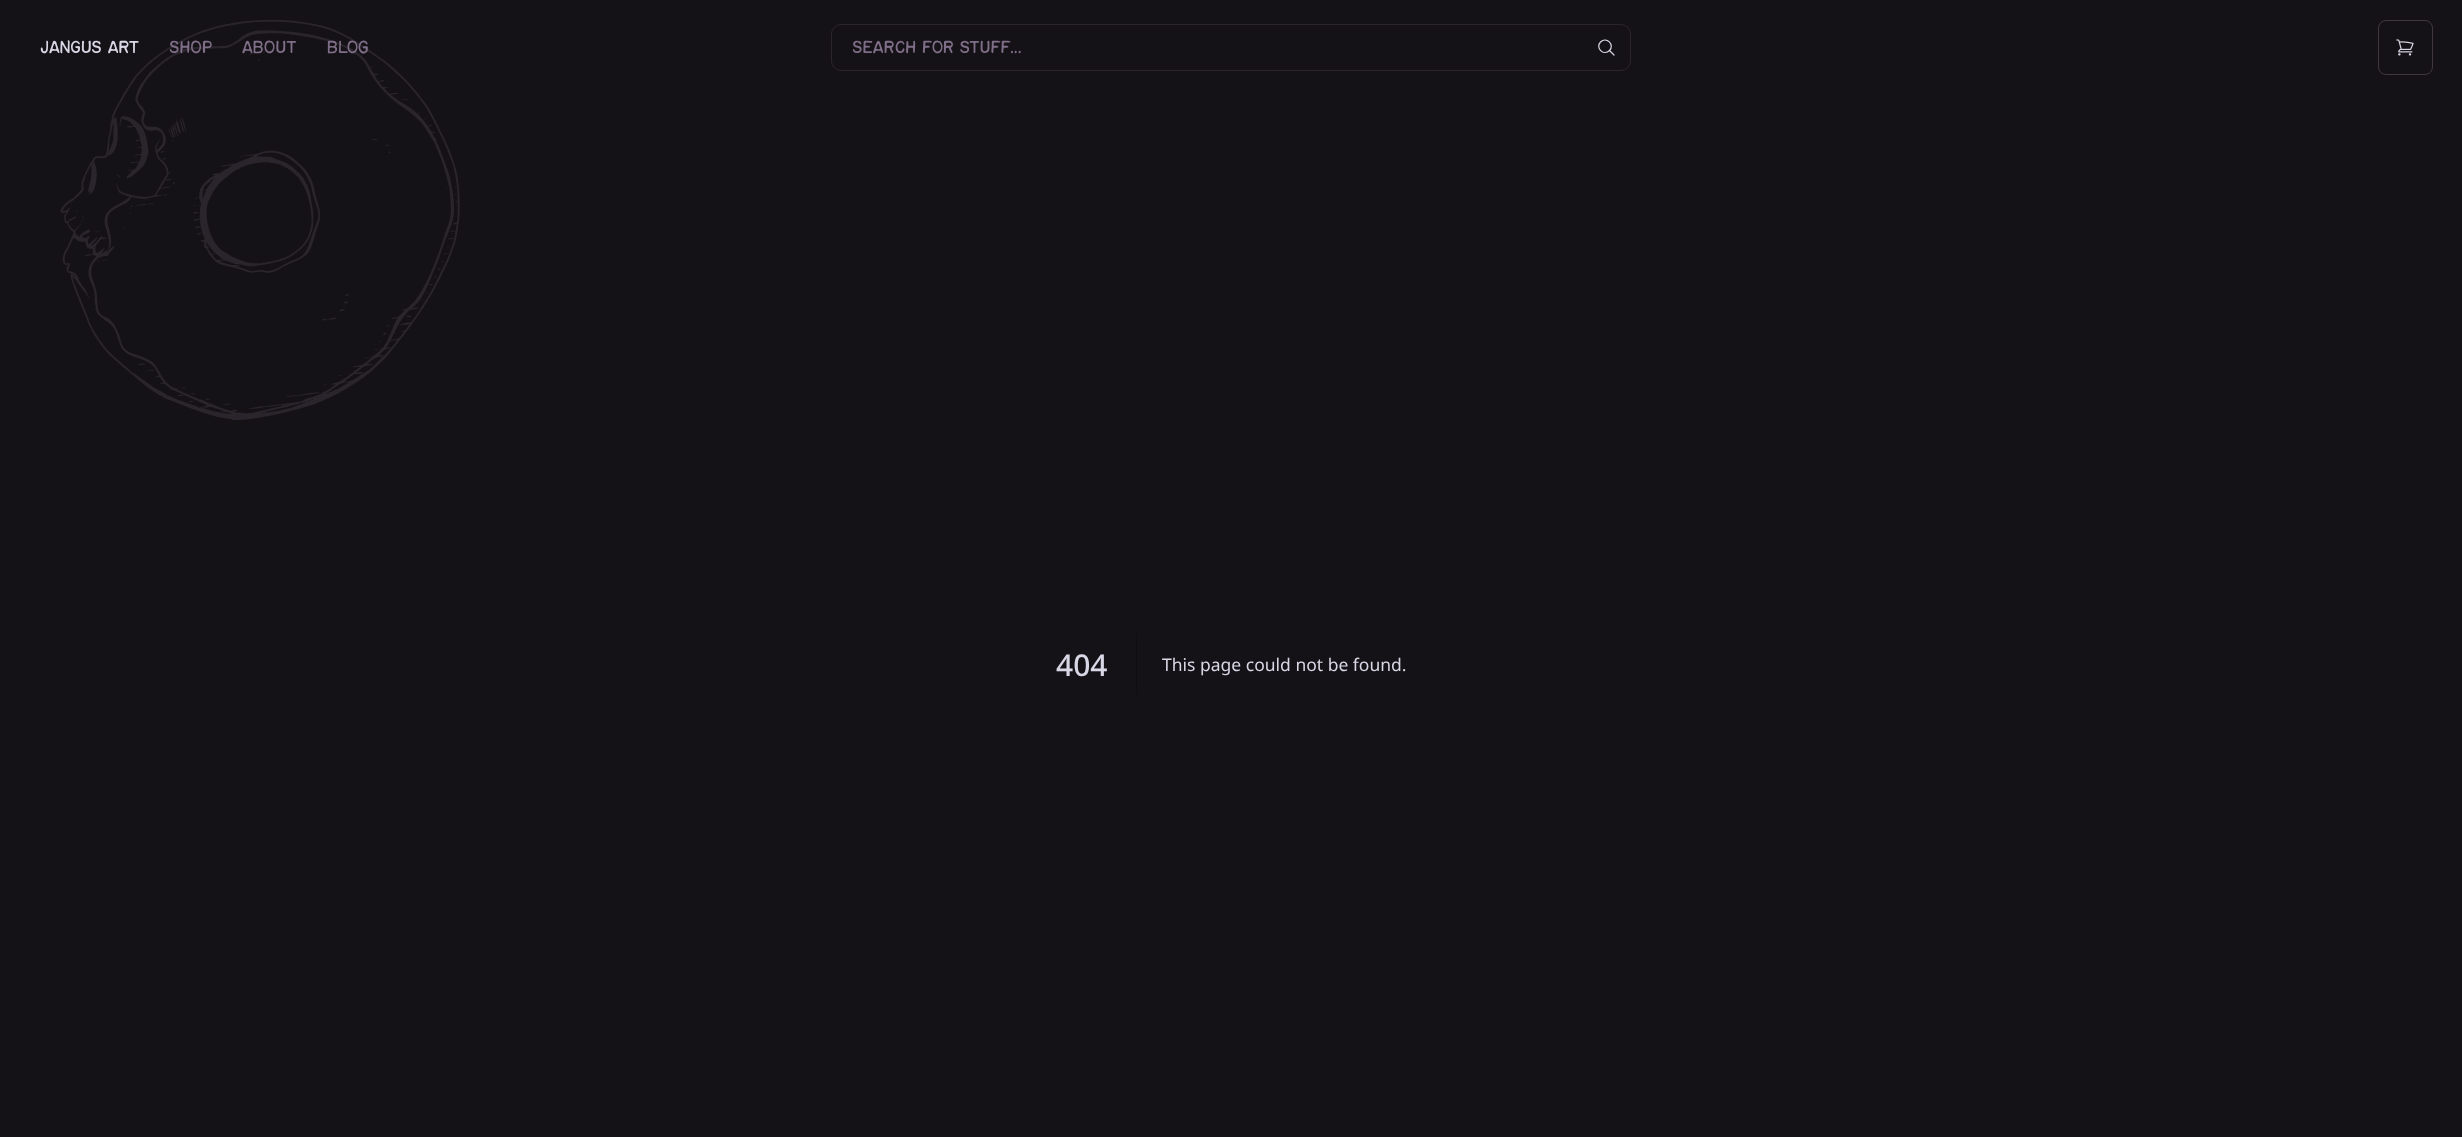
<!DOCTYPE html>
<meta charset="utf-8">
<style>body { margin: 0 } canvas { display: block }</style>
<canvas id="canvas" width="2462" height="1137"></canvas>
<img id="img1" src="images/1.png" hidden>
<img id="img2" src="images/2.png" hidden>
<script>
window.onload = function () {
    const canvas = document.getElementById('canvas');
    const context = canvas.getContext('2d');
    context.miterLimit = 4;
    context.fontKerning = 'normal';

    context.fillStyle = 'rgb(21, 18, 23)';
    context.fillRect(0, 0, 2462, 1137);
    context.drawImage(document.getElementById('img1'), 60, 20, 400, 400);
    context.beginPath();
    context.roundRect(831.5, 24.5, 799, 46, 9.5);
    context.strokeStyle = 'rgb(42, 37, 45)';
    context.stroke();
    context.beginPath();
    context.moveTo(1614, 55);
    context.lineTo(1609.5, 50.5);
    context.moveTo(1609.5, 50.5);
    context.bezierCurveTo(1615, 45, 1606.5, 36, 1600.5, 42);
    context.bezierCurveTo(1595, 47.5, 1603.5, 56.5, 1609.5, 50.5);
    context.closePath();
    context.strokeStyle = 'rgb(216, 215, 229)';
    context.lineWidth = 1.2;
    context.lineCap = 'round';
    context.lineJoin = 'round';
    context.stroke();
    context.beginPath();
    context.roundRect(2378.5, 20.5, 54, 54, 7.5);
    context.strokeStyle = 'rgb(64, 55, 67)';
    context.lineWidth = 1;
    context.lineJoin = 'miter';
    context.stroke();
    context.drawImage(document.getElementById('img2'), 2396, 39, 18, 17);
    context.fillStyle = 'rgb(15, 13, 16)';
    context.fillRect(1136, 634, 1, 61);
    context.font = '17.5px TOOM';
    context.fillStyle = 'rgb(216, 215, 229)';
    context.fillText('JANGUS ART', 40, 53);
    context.fillStyle = 'rgb(127, 110, 135)';
    context.fillText('Shop', 169, 53);
    context.fillText('About', 242, 53);
    context.fillText('Blog', 327, 53);
    context.fillText('Search for stuff...', 852, 53);
    context.font = '500 30px Noto Sans';
    context.fillStyle = 'rgb(216, 215, 229)';
    context.fillText('404', 1056, 676);
    context.font = '17.5px Noto Sans';
    context.fillText('This page could not be found.', 1162, 671);
};
</script>
